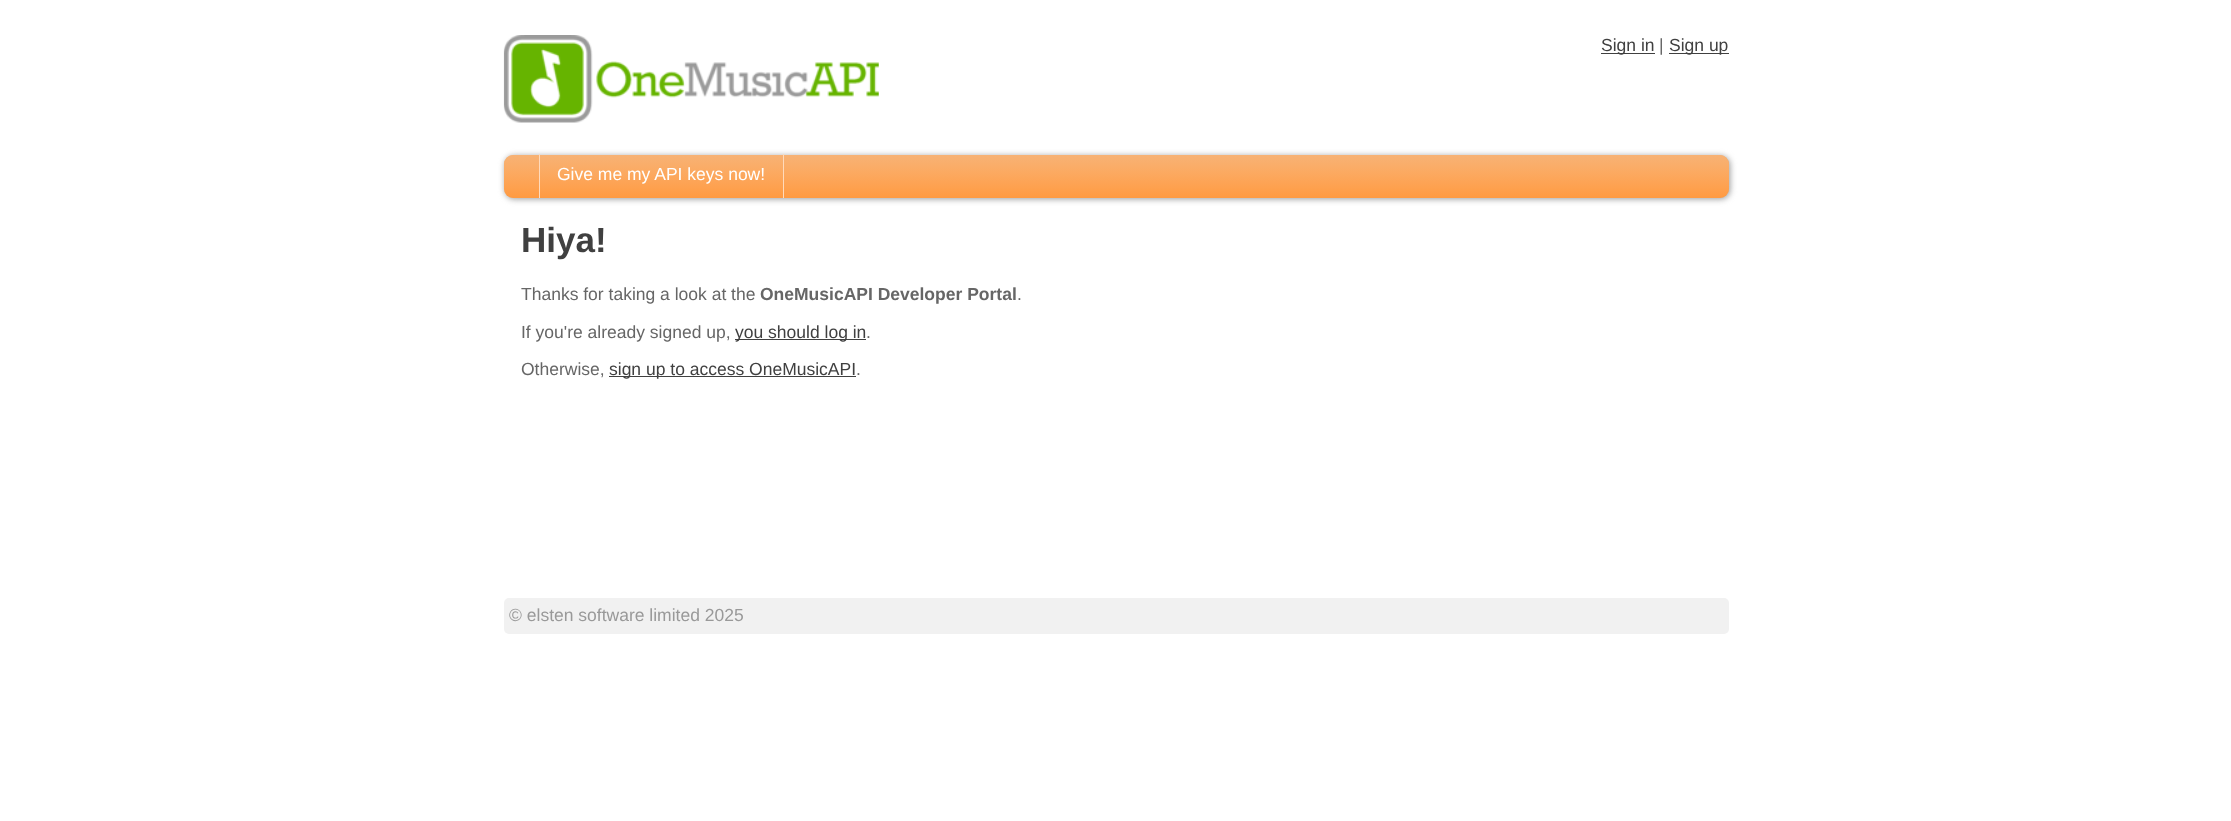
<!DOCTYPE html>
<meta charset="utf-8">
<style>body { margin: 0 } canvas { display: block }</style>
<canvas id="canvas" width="2231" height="821"></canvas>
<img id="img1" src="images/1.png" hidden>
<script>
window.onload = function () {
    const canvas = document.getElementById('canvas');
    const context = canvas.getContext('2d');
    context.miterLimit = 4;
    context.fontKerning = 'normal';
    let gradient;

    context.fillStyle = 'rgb(255, 255, 255)';
    context.fillRect(0, 0, 2231, 821);
    context.drawImage(document.getElementById('img1'), 503, 35, 376, 88);
    context.fillStyle = 'rgb(64, 64, 64)';
    context.fillRect(1601, 53, 54, 1);
    context.fillRect(1669, 53, 60, 1);
    context.fillStyle = 'rgb(153, 153, 153)';
    context.filter = 'blur(3px)';
    context.beginPath();
    context.roundRect(505, 156, 1225, 43, 9);
    context.fill();
    context.filter = 'none';
    context.fillStyle = 'rgb(255, 129, 18)';
    context.beginPath();
    context.roundRect(504, 155, 1225, 43, 9);
    context.fill();
    gradient = context.createLinearGradient(1116, 155, 1116, 198);
    gradient.addColorStop(0, 'rgba(237, 237, 237, 0.45)');
    gradient.addColorStop(1, 'rgba(255, 255, 255, 0.2)');
    context.fillStyle = gradient;
    context.beginPath();
    context.roundRect(504, 155, 1225, 43, 9);
    context.fill();
    context.fillStyle = 'rgb(255, 218, 187)';
    context.fillRect(783, 154, 1, 44);
    context.fillRect(539, 154, 1, 44);
    context.fillStyle = 'rgb(64, 64, 64)';
    context.fillRect(735, 339, 131, 1);
    context.fillRect(609, 376, 247, 1);
    context.fillStyle = 'rgb(241, 241, 241)';
    context.beginPath();
    context.roundRect(504, 598, 1225, 36, 5);
    context.fill();
    context.font = '17.5px Liberation Sans';
    context.fillStyle = 'rgb(64, 64, 64)';
    context.fillText('Sign in', 1601, 51);
    context.fillStyle = 'rgb(102, 102, 102)';
    context.fillText('|', 1659, 51);
    context.fillStyle = 'rgb(64, 64, 64)';
    context.fillText('Sign up', 1669, 51);
    context.fillStyle = 'rgb(255, 255, 255)';
    context.fillText('Give me my API keys now!', 557, 180);
    context.font = 'bold 35px Liberation Sans';
    context.fillStyle = 'rgb(64, 64, 64)';
    context.fillText('Hiya!', 521, 252);
    context.font = '17.5px Liberation Sans';
    context.fillStyle = 'rgb(102, 102, 102)';
    context.fillText('Thanks for taking a look at the', 521, 300);
    context.font = 'bold 17.5px Liberation Sans';
    context.fillText('OneMusicAPI Developer Portal', 760, 300);
    context.font = '17.5px Liberation Sans';
    context.fillText('.', 1017, 300);
    context.fillText('If you\'re already signed up,', 521, 338);
    context.fillStyle = 'rgb(64, 64, 64)';
    context.fillText('you should log in', 735, 338);
    context.fillStyle = 'rgb(102, 102, 102)';
    context.fillText('.', 866, 338);
    context.fillText('Otherwise,', 521, 375);
    context.fillStyle = 'rgb(64, 64, 64)';
    context.fillText('sign up to access OneMusicAPI', 609, 375);
    context.fillStyle = 'rgb(102, 102, 102)';
    context.fillText('.', 856, 375);
    context.fillStyle = 'rgb(153, 153, 153)';
    context.fillText('© elsten software limited 2025', 509, 621);
};
</script>
